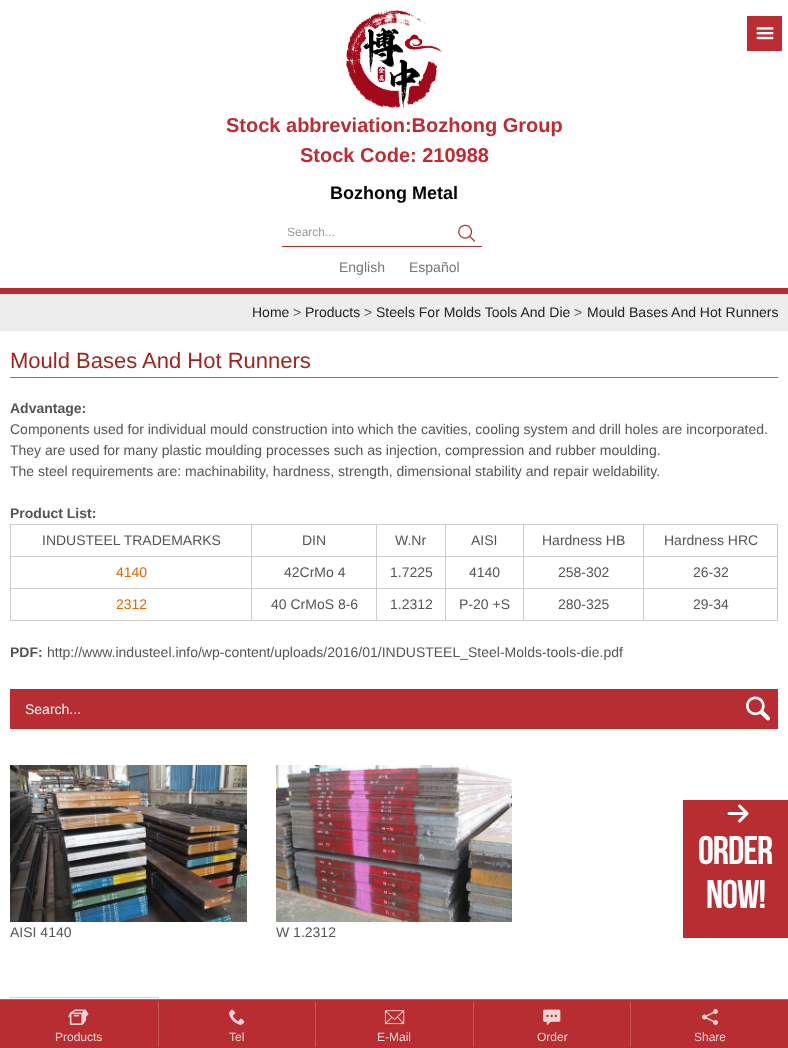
<!DOCTYPE html>
<meta charset="utf-8">
<style>body { margin: 0 } canvas { display: block }</style>
<canvas id="canvas" width="788" height="1048"></canvas>
<img id="img1" src="images/1.png" hidden>
<img id="img2" src="images/2.png" hidden>
<img id="img3" src="images/3.png" hidden>
<img id="img4" src="images/4.png" hidden>
<img id="img5" src="images/5.png" hidden>
<img id="img6" src="images/6.png" hidden>
<img id="img7" src="images/7.png" hidden>
<img id="img8" src="images/8.png" hidden>
<img id="img9" src="images/9.png" hidden>
<img id="img10" src="images/10.png" hidden>
<img id="img11" src="images/11.png" hidden>
<img id="img12" src="images/12.png" hidden>
<script>
window.onload = function () {
    const canvas = document.getElementById('canvas');
    const context = canvas.getContext('2d');
    context.miterLimit = 4;
    context.fontKerning = 'normal';

    context.fillStyle = 'rgb(255, 255, 255)';
    context.fillRect(0, 0, 788, 1048);
    context.fillStyle = 'rgb(186, 45, 50)';
    context.fillRect(747, 16, 35, 35);
    context.drawImage(document.getElementById('img1'), 756, 27, 18, 13);
    context.drawImage(document.getElementById('img2'), 346, 10, 96, 100);
    context.drawImage(document.getElementById('img3'), 458, 224, 18, 18);
    context.fillStyle = 'rgb(185, 46, 51)';
    context.fillRect(282, 246, 200, 1);
    context.fillStyle = 'rgb(237, 237, 237)';
    context.fillRect(0, 294, 788, 37);
    context.fillStyle = 'rgb(184, 45, 50)';
    context.fillRect(0, 288, 788, 6);
    context.fillStyle = 'rgb(119, 119, 119)';
    context.fillRect(10, 377, 768, 1);
    context.fillStyle = 'rgb(204, 204, 204)';
    context.fillRect(643, 524, 135, 1);
    context.fillRect(643, 556, 135, 1);
    context.fillRect(643, 588, 135, 1);
    context.fillRect(777, 588, 1, 33);
    context.fillRect(643, 620, 135, 1);
    context.fillRect(643, 588, 1, 33);
    context.fillRect(523, 588, 121, 1);
    context.fillRect(643, 556, 1, 33);
    context.fillRect(523, 556, 121, 1);
    context.fillRect(643, 524, 1, 33);
    context.fillRect(523, 524, 121, 1);
    context.fillRect(523, 620, 121, 1);
    context.fillRect(523, 588, 1, 33);
    context.fillRect(445, 588, 79, 1);
    context.fillRect(523, 556, 1, 33);
    context.fillRect(445, 556, 79, 1);
    context.fillRect(523, 524, 1, 33);
    context.fillRect(445, 524, 79, 1);
    context.fillRect(445, 620, 79, 1);
    context.fillRect(445, 588, 1, 33);
    context.fillRect(376, 588, 70, 1);
    context.fillRect(445, 556, 1, 33);
    context.fillRect(376, 556, 70, 1);
    context.fillRect(445, 524, 1, 33);
    context.fillRect(376, 524, 70, 1);
    context.fillRect(376, 620, 70, 1);
    context.fillRect(376, 588, 1, 33);
    context.fillRect(251, 588, 126, 1);
    context.fillRect(376, 556, 1, 33);
    context.fillRect(251, 556, 126, 1);
    context.fillRect(376, 524, 1, 33);
    context.fillRect(251, 524, 126, 1);
    context.fillRect(251, 620, 126, 1);
    context.fillRect(251, 588, 1, 33);
    context.fillRect(10, 588, 242, 1);
    context.fillRect(251, 556, 1, 33);
    context.fillRect(10, 556, 242, 1);
    context.fillRect(251, 524, 1, 33);
    context.fillRect(10, 524, 242, 1);
    context.fillRect(10, 620, 242, 1);
    context.fillRect(10, 588, 1, 33);
    context.fillRect(10, 556, 1, 33);
    context.fillRect(10, 524, 1, 33);
    context.fillRect(777, 556, 1, 33);
    context.fillRect(777, 524, 1, 33);
    context.fillStyle = 'rgb(184, 45, 50)';
    context.fillRect(10, 689, 768, 40);
    context.drawImage(document.getElementById('img4'), 746, 696, 24, 25);
    context.drawImage(document.getElementById('img5'), 10, 765, 237, 157);
    context.drawImage(document.getElementById('img6'), 276, 765, 236, 157);
    context.strokeStyle = 'rgb(215, 215, 213)';
    context.strokeRect(10.5, 997.5, 148, 29);
    context.fillRect(683, 800, 105, 138);
    context.drawImage(document.getElementById('img7'), 727, 804, 22, 19);
    context.fillRect(0, 1000, 788, 48);
    context.fillStyle = 'rgb(198, 87, 91)';
    context.fillRect(0, 999, 788, 1);
    context.drawImage(document.getElementById('img8'), 68, 1009, 21, 16);
    context.fillRect(158, 1002, 1, 45);
    context.drawImage(document.getElementById('img9'), 228, 1009, 17, 16);
    context.fillRect(315, 1002, 1, 45);
    context.drawImage(document.getElementById('img10'), 384, 1010, 21, 15);
    context.fillRect(473, 1002, 1, 45);
    context.drawImage(document.getElementById('img11'), 543, 1009, 18, 16);
    context.fillRect(630, 1002, 1, 45);
    context.drawImage(document.getElementById('img12'), 702, 1009, 16, 16);
    context.font = 'bold 20px Liberation Sans';
    context.fillStyle = 'rgb(189, 44, 51)';
    context.fillText('Stock abbreviation:Bozhong Group', 226, 132);
    context.fillText('Stock Code: 210988', 300, 162);
    context.font = 'bold 18px Liberation Sans';
    context.fillStyle = 'rgb(0, 0, 0)';
    context.fillText('Bozhong Metal', 330, 199);
    context.font = '12px Liberation Sans';
    context.fillStyle = 'rgb(153, 153, 153)';
    context.fillText('Search...', 287, 236);
    context.font = '14px Liberation Sans';
    context.fillStyle = 'rgb(119, 119, 119)';
    context.fillText('English', 339, 272);
    context.fillText('Español', 409, 272);
    context.fillStyle = 'rgb(34, 34, 34)';
    context.fillText('Home', 252, 317);
    context.fillStyle = 'rgb(85, 85, 85)';
    context.fillText('>', 293, 317);
    context.fillStyle = 'rgb(34, 34, 34)';
    context.fillText('Products', 305, 317);
    context.fillStyle = 'rgb(85, 85, 85)';
    context.fillText('>', 364, 317);
    context.fillStyle = 'rgb(34, 34, 34)';
    context.fillText('Steels For Molds Tools And Die', 376, 317);
    context.fillStyle = 'rgb(85, 85, 85)';
    context.fillText('>', 574, 317);
    context.fillStyle = 'rgb(34, 34, 34)';
    context.fillText('Mould Bases And Hot Runners', 587, 317);
    context.font = '22px Liberation Sans';
    context.fillStyle = 'rgb(158, 36, 28)';
    context.fillText('Mould Bases And Hot Runners', 10, 368);
    context.font = 'bold 14px Liberation Sans';
    context.fillStyle = 'rgb(85, 85, 85)';
    context.fillText('Advantage:', 10, 413);
    context.font = '14px Liberation Sans';
    context.fillText('Components used for individual mould construction into which the cavities, cooling system and drill holes are incorporated.', 10, 434);
    context.fillText('They are used for many plastic moulding processes such as injection, compression and rubber moulding.', 10, 455);
    context.fillText('The steel requirements are: machinability, hardness, strength, dimensional stability and repair weldability.', 10, 476);
    context.font = 'bold 14px Liberation Sans';
    context.fillText('Product List:', 10, 518);
    context.font = '14px Liberation Sans';
    context.fillText('INDUSTEEL TRADEMARKS', 42, 545);
    context.fillText('DIN', 302, 545);
    context.fillText('W.Nr', 395, 545);
    context.fillText('AISI', 471, 545);
    context.fillText('Hardness HB', 542, 545);
    context.fillText('Hardness HRC', 664, 545);
    context.fillStyle = 'rgb(229, 102, 0)';
    context.fillText('4140', 116, 577);
    context.fillStyle = 'rgb(85, 85, 85)';
    context.fillText('42CrMo 4', 284, 577);
    context.fillText('1.7225', 390, 577);
    context.fillText('4140', 469, 577);
    context.fillText('258-302', 558, 577);
    context.fillText('26-32', 693, 577);
    context.fillStyle = 'rgb(229, 102, 0)';
    context.fillText('2312', 116, 609);
    context.fillStyle = 'rgb(85, 85, 85)';
    context.fillText('40 CrMoS 8-6', 271, 609);
    context.fillText('1.2312', 390, 609);
    context.fillText('P-20 +S', 459, 609);
    context.fillText('280-325', 558, 609);
    context.fillText('29-34', 693, 609);
    context.font = 'bold 14px Liberation Sans';
    context.fillText('PDF:', 10, 657);
    context.font = '14px Liberation Sans';
    context.fillText('http://www.industeel.info/wp-content/uploads/2016/01/INDUSTEEL_Steel-Molds-tools-die.pdf', 47, 657);
    context.fillStyle = 'rgb(255, 255, 255)';
    context.fillText('Search...', 25, 714);
    context.fillStyle = 'rgb(85, 85, 85)';
    context.fillText('AISI 4140', 10, 937);
    context.fillText('W 1.2312', 276, 937);
    context.letterSpacing = '-1px';
    context.font = '40px Bebas Neue';
    context.fillStyle = 'rgb(255, 255, 255)';
    context.fillText('Order', 698, 864);
    context.fillText('Now!', 706, 908);
    context.letterSpacing = '0px';
    context.font = '12px Liberation Sans';
    context.fillStyle = 'rgb(241, 213, 214)';
    context.fillText('Products', 55, 1041);
    context.fillText('Tel', 229, 1041);
    context.fillText('E-Mail', 377, 1041);
    context.fillText('Order', 537, 1041);
    context.fillText('Share', 694, 1041);
};
</script>
